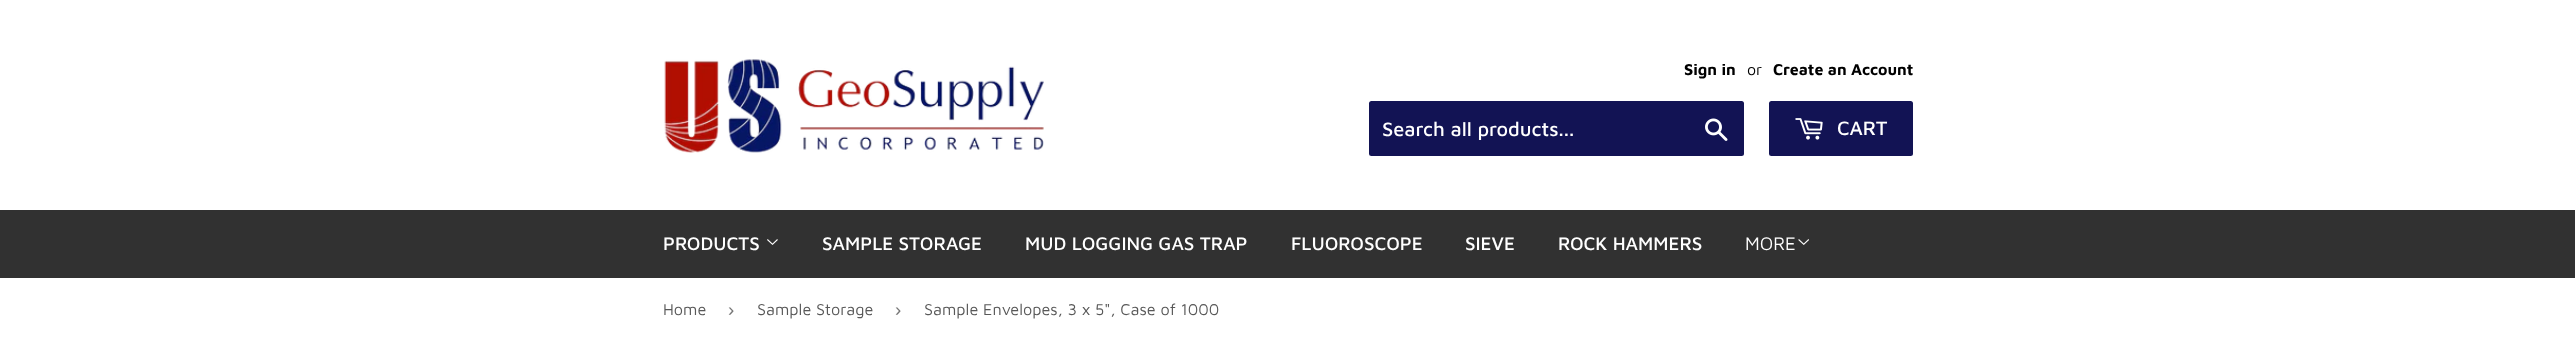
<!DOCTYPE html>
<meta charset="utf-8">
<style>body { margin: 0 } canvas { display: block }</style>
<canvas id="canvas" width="2575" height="339"></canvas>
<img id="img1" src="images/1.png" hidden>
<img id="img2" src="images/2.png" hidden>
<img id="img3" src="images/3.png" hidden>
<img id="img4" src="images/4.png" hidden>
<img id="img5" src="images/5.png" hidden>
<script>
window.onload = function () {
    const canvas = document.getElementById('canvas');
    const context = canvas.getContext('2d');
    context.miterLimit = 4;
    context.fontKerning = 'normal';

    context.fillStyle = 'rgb(255, 255, 255)';
    context.fillRect(0, 0, 2575, 339);
    context.drawImage(document.getElementById('img1'), 664, 59, 380, 94);
    context.fillStyle = 'rgb(18, 19, 84)';
    context.beginPath();
    context.roundRect(1369, 101, 375, 55, 2.5);
    context.fill();
    context.drawImage(document.getElementById('img2'), 1705, 118, 23, 23);
    context.beginPath();
    context.roundRect(1769, 101, 144, 55, 2.5);
    context.fill();
    context.drawImage(document.getElementById('img3'), 1795, 118, 28, 22);
    context.fillStyle = 'rgb(49, 49, 49)';
    context.fillRect(0, 210, 2575, 68);
    context.drawImage(document.getElementById('img4'), 767, 239, 11, 6);
    context.drawImage(document.getElementById('img5'), 1798, 239, 11, 6);
    context.font = 'bold 16px Maven Pro';
    context.fillStyle = 'rgb(0, 0, 0)';
    context.fillText('Sign in', 1684, 75);
    context.font = '16px Maven Pro';
    context.fillText('or', 1747, 75);
    context.font = 'bold 16px Maven Pro';
    context.fillText('Create an Account', 1773, 75);
    context.font = '500 20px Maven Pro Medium';
    context.fillStyle = 'rgb(255, 255, 255)';
    context.fillText('Search all products...', 1382, 136);
    context.fillText('CART', 1837, 135);
    context.font = '500 18.75px Maven Pro Medium';
    context.fillText('PRODUCTS', 663, 250);
    context.fillText('SAMPLE STORAGE', 822, 250);
    context.fillText('MUD LOGGING GAS TRAP', 1025, 250);
    context.fillText('FLUOROSCOPE', 1291, 250);
    context.fillText('SIEVE', 1465, 250);
    context.fillText('ROCK HAMMERS', 1558, 250);
    context.font = '18.75px Maven Pro';
    context.fillText('MORE', 1745, 250);
    context.font = '16.25px Maven Pro';
    context.fillStyle = 'rgb(88, 88, 88)';
    context.fillText('Home', 663, 315);
    context.font = '18.75px Liberation Sans';
    context.fillStyle = 'rgb(118, 118, 118)';
    context.fillText('›', 728, 316);
    context.font = '16.25px Maven Pro';
    context.fillStyle = 'rgb(88, 88, 88)';
    context.fillText('Sample Storage', 757, 315);
    context.font = '18.75px Liberation Sans';
    context.fillStyle = 'rgb(118, 118, 118)';
    context.fillText('›', 895, 316);
    context.font = '16.25px Maven Pro';
    context.fillStyle = 'rgb(88, 88, 88)';
    context.fillText('Sample Envelopes, 3 x 5", Case of 1000', 924, 315);
};
</script>
